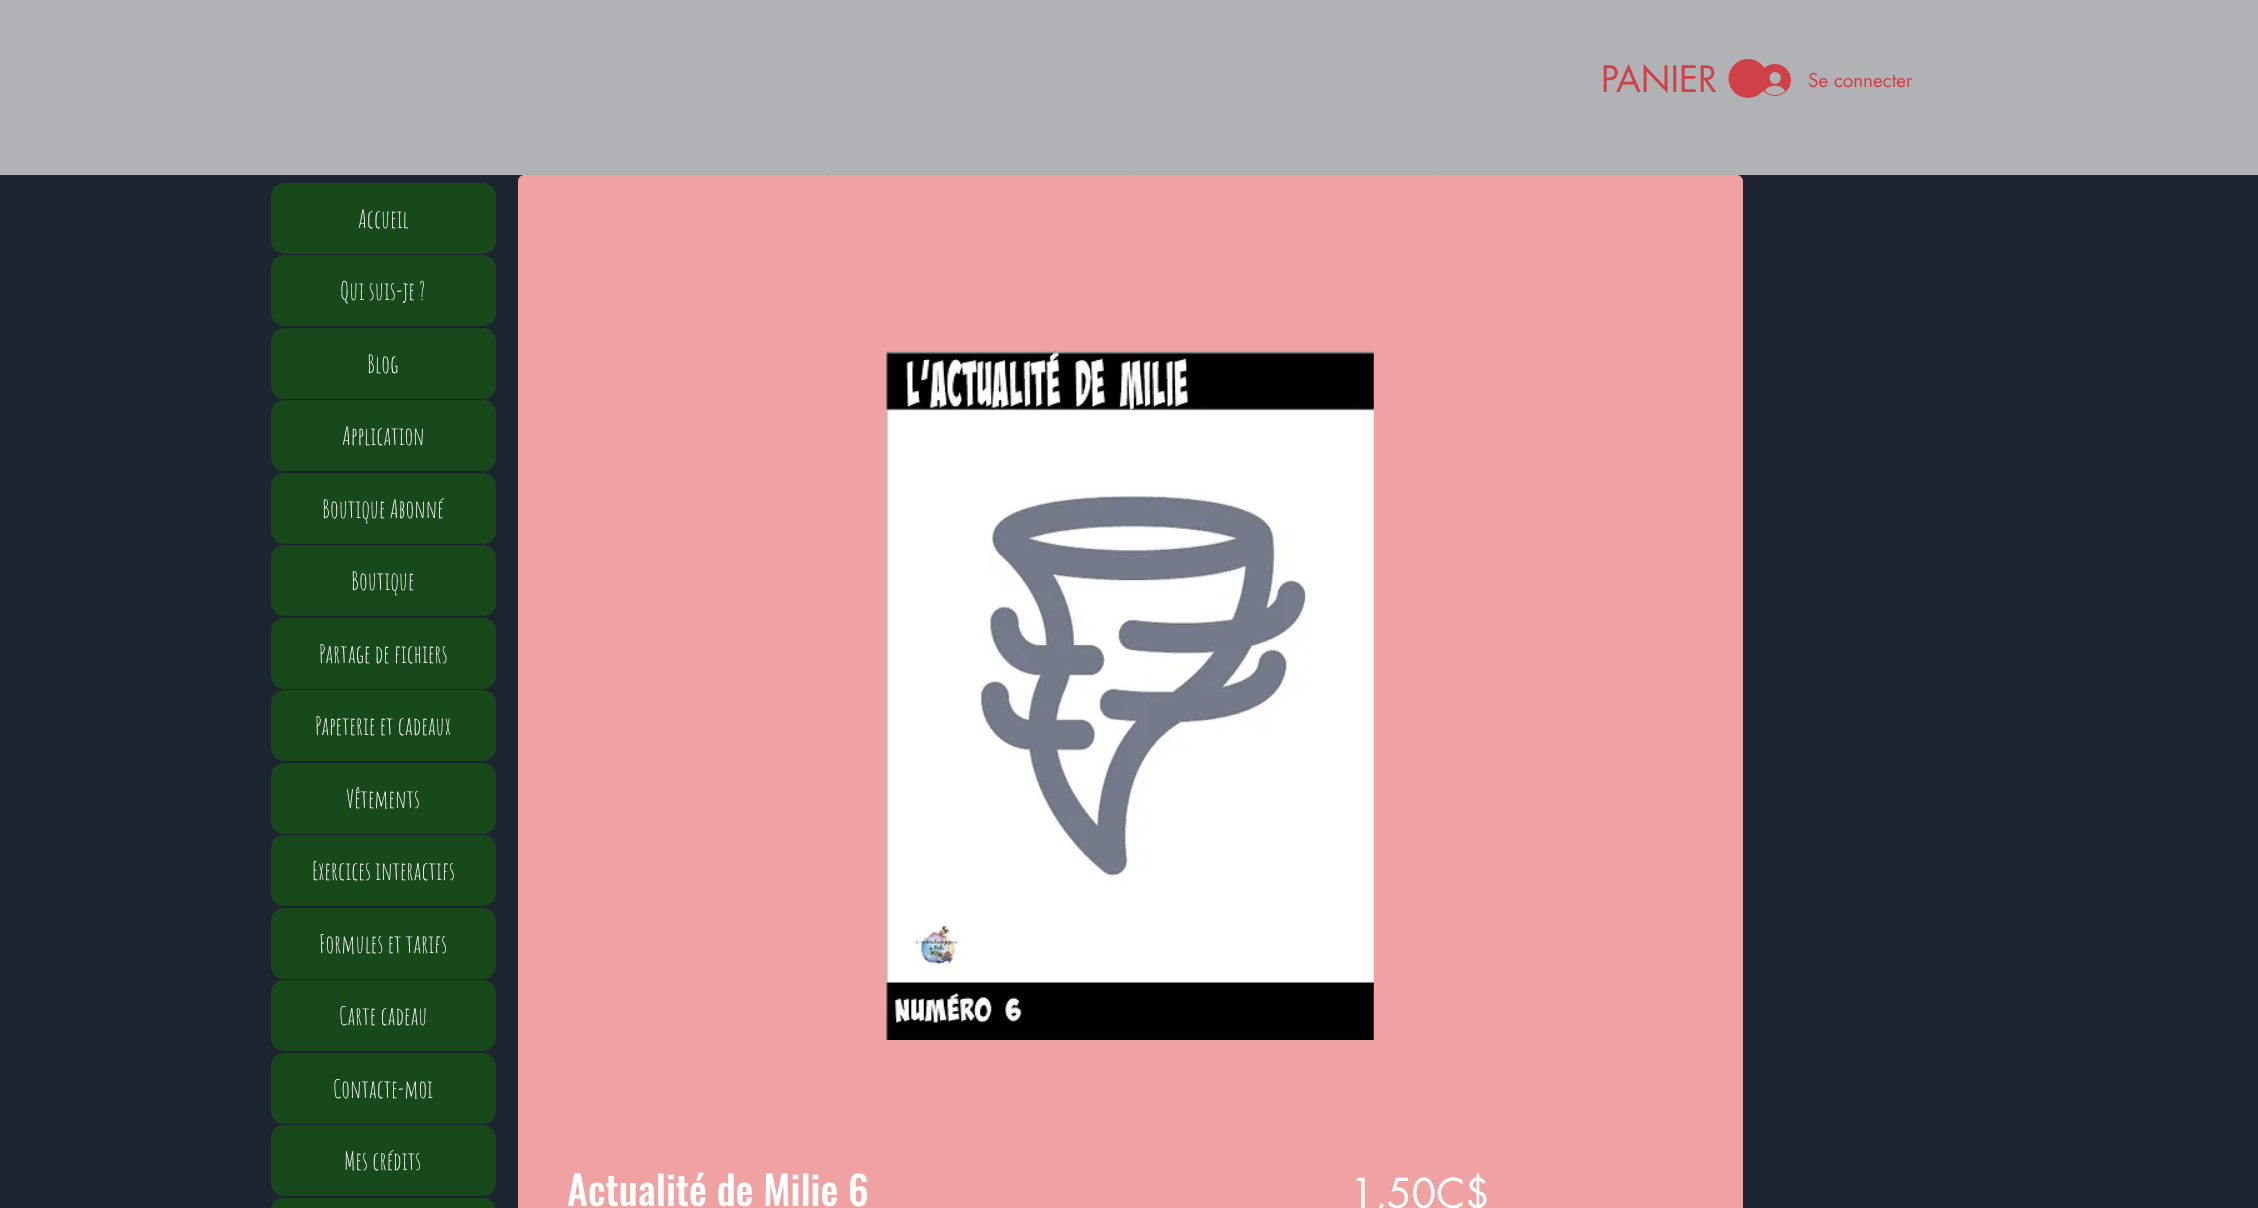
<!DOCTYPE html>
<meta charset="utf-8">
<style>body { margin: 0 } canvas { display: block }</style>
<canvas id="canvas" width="2258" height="1208"></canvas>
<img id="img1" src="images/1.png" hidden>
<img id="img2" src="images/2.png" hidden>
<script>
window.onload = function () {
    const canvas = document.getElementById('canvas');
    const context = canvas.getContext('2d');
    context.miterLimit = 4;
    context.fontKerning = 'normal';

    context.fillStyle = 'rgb(28, 36, 47)';
    context.fillRect(0, 0, 2258, 1208);
    context.fillStyle = 'rgb(176, 178, 182)';
    context.fillRect(0, 0, 2258, 175);
    context.fillStyle = 'rgb(207, 65, 71)';
    context.beginPath();
    context.arc(1748, 78.5, 19.5, 0, 2 * Math.PI);
    context.fill();
    context.drawImage(document.getElementById('img1'), 1763, 64, 28, 32);
    context.fillStyle = 'rgb(24, 73, 26)';
    context.beginPath();
    context.roundRect(271, 183, 225, 71, 13);
    context.fill();
    context.beginPath();
    context.roundRect(271, 255, 225, 71, 13);
    context.fill();
    context.beginPath();
    context.roundRect(271, 328, 225, 71, 13);
    context.fill();
    context.beginPath();
    context.roundRect(271, 400, 225, 71, 13);
    context.fill();
    context.beginPath();
    context.roundRect(271, 473, 225, 71, 13);
    context.fill();
    context.beginPath();
    context.roundRect(271, 545, 225, 71, 13);
    context.fill();
    context.beginPath();
    context.roundRect(271, 618, 225, 71, 13);
    context.fill();
    context.beginPath();
    context.roundRect(271, 690, 225, 71, 13);
    context.fill();
    context.beginPath();
    context.roundRect(271, 763, 225, 71, 13);
    context.fill();
    context.beginPath();
    context.roundRect(271, 835, 225, 71, 13);
    context.fill();
    context.beginPath();
    context.roundRect(271, 908, 225, 71, 13);
    context.fill();
    context.beginPath();
    context.roundRect(271, 980, 225, 71, 13);
    context.fill();
    context.beginPath();
    context.roundRect(271, 1053, 225, 71, 13);
    context.fill();
    context.beginPath();
    context.roundRect(271, 1125, 225, 71, 13);
    context.fill();
    context.beginPath();
    context.roundRect(271, 1198, 225, 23, 13);
    context.fill();
    context.fillStyle = 'rgb(240, 161, 161)';
    context.beginPath();
    context.roundRect(518.5, 175.5, 1224, 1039, 5.5);
    context.fill();
    context.strokeStyle = 'rgb(240, 161, 161)';
    context.stroke();
    context.drawImage(document.getElementById('img2'), 886, 351, 488, 689);
    context.font = '35.5px futura';
    context.fillStyle = 'rgb(207, 65, 71)';
    context.fillText('PANIER', 1601, 92);
    context.font = '18.75px futura';
    context.fillText('Se connecter', 1808, 87);
    context.font = '25px Amatic SC';
    context.fillStyle = 'rgb(255, 255, 255)';
    context.fillText('Accueil', 358, 228);
    context.fillText('Qui suis-je ?', 340, 300);
    context.fillText('Blog', 367, 373);
    context.fillText('Application', 342, 445);
    context.fillText('Boutique Abonné', 322, 518);
    context.fillText('Boutique', 351, 590);
    context.fillText('Partage de fichiers', 319, 663);
    context.fillText('Papeterie et cadeaux', 315, 735);
    context.fillText('Vêtements', 346, 808);
    context.fillText('Exercices interactifs', 312, 880);
    context.fillText('Formules et tarifs', 319, 953);
    context.fillText('Carte cadeau', 339, 1025);
    context.fillText('Contacte-moi', 333, 1098);
    context.fillText('Mes crédits', 344, 1170);
    context.font = '500 40px Oswald';
    context.fillText('Actualité de Milie 6', 567, 1206);
    context.font = '40px futura';
    context.fillText('1,50C$', 1350, 1208);
};
</script>
